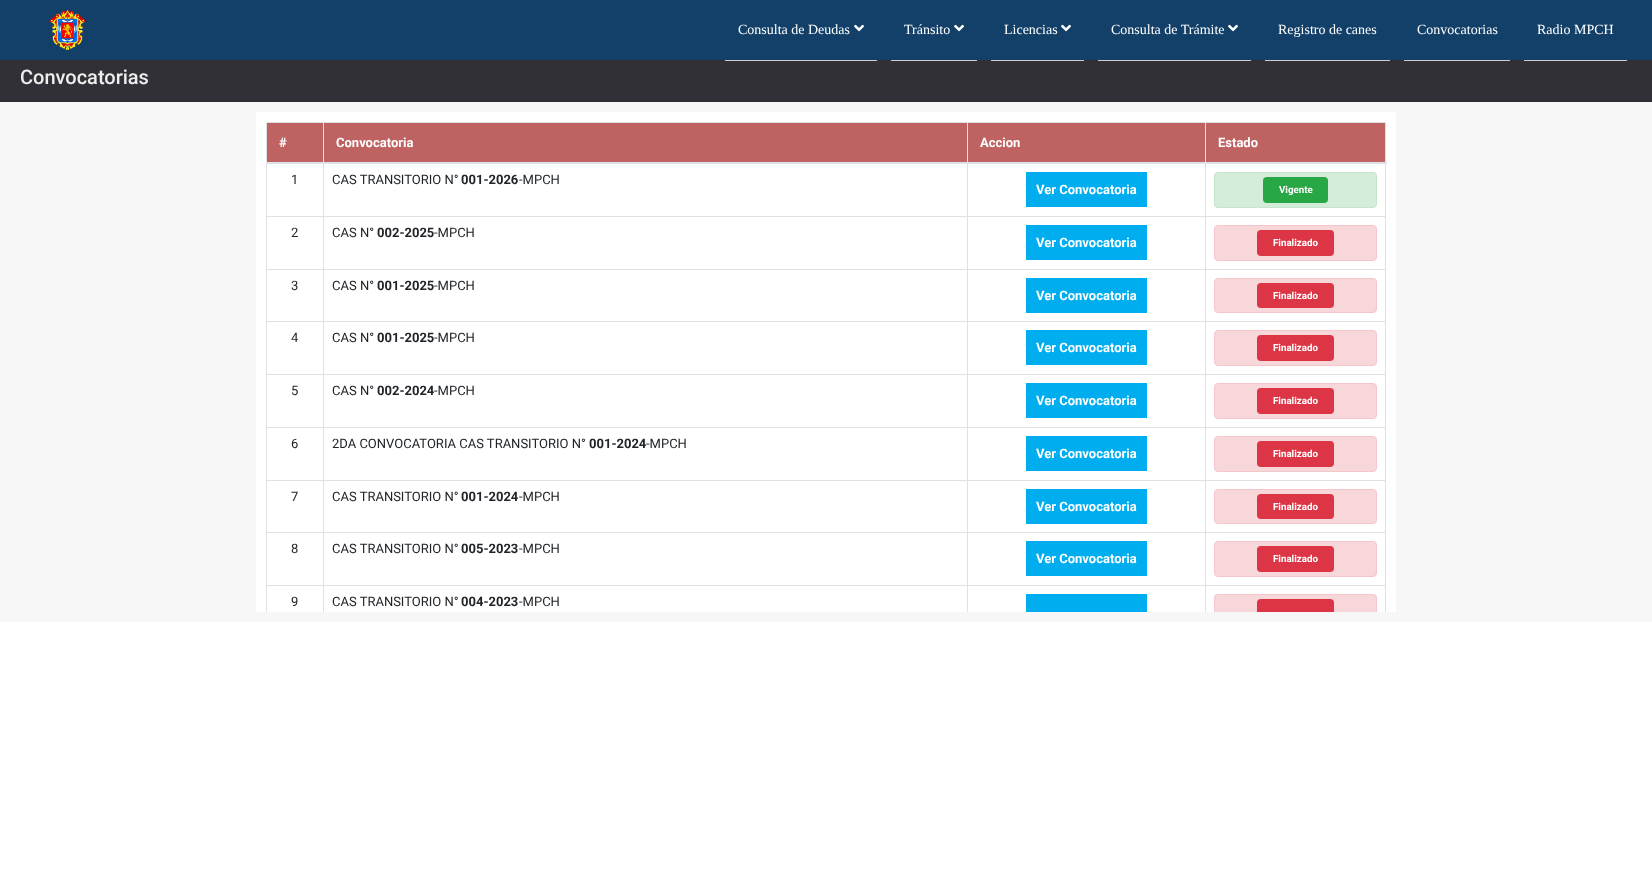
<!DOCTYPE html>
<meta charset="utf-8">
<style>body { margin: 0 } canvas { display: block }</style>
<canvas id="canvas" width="1652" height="877"></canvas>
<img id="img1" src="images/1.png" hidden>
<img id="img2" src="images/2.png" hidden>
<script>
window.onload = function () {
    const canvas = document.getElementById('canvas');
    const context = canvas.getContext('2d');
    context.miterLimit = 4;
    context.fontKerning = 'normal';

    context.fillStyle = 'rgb(255, 255, 255)';
    context.fillRect(0, 0, 1652, 877);
    context.fillStyle = 'rgb(19, 64, 105)';
    context.fillRect(0, 0, 1652, 60);
    context.drawImage(document.getElementById('img1'), 50, 10, 35, 40);
    context.fillStyle = 'rgb(48, 48, 54)';
    context.fillRect(0, 60, 1652, 42);
    context.fillStyle = 'rgb(204, 204, 204)';
    context.fillRect(725, 60, 152, 1);
    context.drawImage(document.getElementById('img2'), 854, 24, 10, 8);
    context.fillRect(891, 60, 86, 1);
    context.drawImage(document.getElementById('img2'), 954, 24, 10, 8);
    context.fillRect(991, 60, 93, 1);
    context.drawImage(document.getElementById('img2'), 1061, 24, 10, 8);
    context.fillRect(1098, 60, 153, 1);
    context.drawImage(document.getElementById('img2'), 1228, 24, 10, 8);
    context.fillRect(1265, 60, 125, 1);
    context.fillRect(1404, 60, 106, 1);
    context.fillRect(1524, 60, 103, 1);
    context.fillStyle = 'rgb(247, 247, 247)';
    context.fillRect(0, 102, 1652, 520);
    context.fillStyle = 'rgb(255, 255, 255)';
    context.fillRect(256, 112, 1140, 500);
    context.fillStyle = 'rgb(222, 226, 230)';
    context.fillRect(266, 122, 1120, 1);
    context.fillRect(1385, 122, 1, 490);
    context.fillRect(266, 122, 1, 490);
    context.fillStyle = 'rgb(191, 98, 98)';
    context.fillRect(267, 123, 1118, 39);
    context.fillStyle = 'rgb(222, 226, 230)';
    context.fillRect(1205, 216, 181, 1);
    context.fillRect(1205, 269, 181, 1);
    context.fillRect(1205, 321, 181, 1);
    context.fillRect(1205, 374, 181, 1);
    context.fillRect(1205, 427, 181, 1);
    context.fillRect(1205, 480, 181, 1);
    context.fillRect(1205, 532, 181, 1);
    context.fillRect(1205, 585, 181, 1);
    context.fillRect(1205, 585, 1, 27);
    context.fillRect(967, 585, 239, 1);
    context.fillRect(1205, 532, 1, 54);
    context.fillRect(967, 532, 239, 1);
    context.fillRect(1205, 480, 1, 53);
    context.fillRect(967, 480, 239, 1);
    context.fillRect(1205, 427, 1, 54);
    context.fillRect(967, 427, 239, 1);
    context.fillRect(1205, 374, 1, 54);
    context.fillRect(967, 374, 239, 1);
    context.fillRect(1205, 321, 1, 54);
    context.fillRect(967, 321, 239, 1);
    context.fillRect(1205, 269, 1, 53);
    context.fillRect(967, 269, 239, 1);
    context.fillRect(1205, 216, 1, 54);
    context.fillRect(967, 216, 239, 1);
    context.fillRect(967, 585, 1, 27);
    context.fillRect(323, 585, 645, 1);
    context.fillRect(967, 532, 1, 54);
    context.fillRect(323, 532, 645, 1);
    context.fillRect(967, 480, 1, 53);
    context.fillRect(323, 480, 645, 1);
    context.fillRect(967, 427, 1, 54);
    context.fillRect(323, 427, 645, 1);
    context.fillRect(967, 374, 1, 54);
    context.fillRect(323, 374, 645, 1);
    context.fillRect(967, 321, 1, 54);
    context.fillRect(323, 321, 645, 1);
    context.fillRect(967, 269, 1, 53);
    context.fillRect(323, 269, 645, 1);
    context.fillRect(967, 216, 1, 54);
    context.fillRect(323, 216, 645, 1);
    context.fillRect(323, 585, 1, 27);
    context.fillRect(266, 585, 58, 1);
    context.fillRect(323, 532, 1, 54);
    context.fillRect(266, 532, 58, 1);
    context.fillRect(323, 480, 1, 53);
    context.fillRect(266, 480, 58, 1);
    context.fillRect(323, 427, 1, 54);
    context.fillRect(266, 427, 58, 1);
    context.fillRect(323, 374, 1, 54);
    context.fillRect(266, 374, 58, 1);
    context.fillRect(323, 321, 1, 54);
    context.fillRect(266, 321, 58, 1);
    context.fillRect(323, 269, 1, 53);
    context.fillRect(266, 269, 58, 1);
    context.fillRect(323, 216, 1, 54);
    context.fillRect(266, 216, 58, 1);
    context.fillRect(323, 122, 1, 95);
    context.fillRect(967, 122, 1, 95);
    context.fillRect(1205, 122, 1, 95);
    context.fillRect(266, 162, 1121, 2);
    context.fillStyle = 'rgb(0, 173, 238)';
    context.fillRect(1026, 172, 121, 35);
    context.fillStyle = 'rgb(212, 237, 218)';
    context.beginPath();
    context.roundRect(1214.5, 172.5, 162, 35, 3.5);
    context.fill();
    context.strokeStyle = 'rgb(195, 230, 203)';
    context.stroke();
    context.fillStyle = 'rgb(40, 167, 69)';
    context.beginPath();
    context.roundRect(1263, 177, 65, 26, 4);
    context.fill();
    context.fillStyle = 'rgb(0, 173, 238)';
    context.fillRect(1026, 225, 121, 35);
    context.fillStyle = 'rgb(248, 215, 218)';
    context.beginPath();
    context.roundRect(1214.5, 225.5, 162, 35, 3.5);
    context.fill();
    context.strokeStyle = 'rgb(245, 198, 203)';
    context.stroke();
    context.fillStyle = 'rgb(220, 53, 69)';
    context.beginPath();
    context.roundRect(1257, 230, 77, 26, 4);
    context.fill();
    context.fillStyle = 'rgb(0, 173, 238)';
    context.fillRect(1026, 278, 121, 35);
    context.fillStyle = 'rgb(248, 215, 218)';
    context.beginPath();
    context.roundRect(1214.5, 278.5, 162, 34, 3.5);
    context.fill();
    context.stroke();
    context.fillStyle = 'rgb(220, 53, 69)';
    context.beginPath();
    context.roundRect(1257, 283, 77, 25, 4);
    context.fill();
    context.fillStyle = 'rgb(0, 173, 238)';
    context.fillRect(1026, 330, 121, 35);
    context.fillStyle = 'rgb(248, 215, 218)';
    context.beginPath();
    context.roundRect(1214.5, 330.5, 162, 35, 3.5);
    context.fill();
    context.stroke();
    context.fillStyle = 'rgb(220, 53, 69)';
    context.beginPath();
    context.roundRect(1257, 335, 77, 26, 4);
    context.fill();
    context.fillStyle = 'rgb(0, 173, 238)';
    context.fillRect(1026, 383, 121, 35);
    context.fillStyle = 'rgb(248, 215, 218)';
    context.beginPath();
    context.roundRect(1214.5, 383.5, 162, 35, 3.5);
    context.fill();
    context.stroke();
    context.fillStyle = 'rgb(220, 53, 69)';
    context.beginPath();
    context.roundRect(1257, 388, 77, 26, 4);
    context.fill();
    context.fillStyle = 'rgb(0, 173, 238)';
    context.fillRect(1026, 436, 121, 35);
    context.fillStyle = 'rgb(248, 215, 218)';
    context.beginPath();
    context.roundRect(1214.5, 436.5, 162, 35, 3.5);
    context.fill();
    context.stroke();
    context.fillStyle = 'rgb(220, 53, 69)';
    context.beginPath();
    context.roundRect(1257, 441, 77, 26, 4);
    context.fill();
    context.fillStyle = 'rgb(0, 173, 238)';
    context.fillRect(1026, 489, 121, 35);
    context.fillStyle = 'rgb(248, 215, 218)';
    context.beginPath();
    context.roundRect(1214.5, 489.5, 162, 34, 3.5);
    context.fill();
    context.stroke();
    context.fillStyle = 'rgb(220, 53, 69)';
    context.beginPath();
    context.roundRect(1257, 494, 77, 25, 4);
    context.fill();
    context.fillStyle = 'rgb(0, 173, 238)';
    context.fillRect(1026, 541, 121, 35);
    context.fillStyle = 'rgb(248, 215, 218)';
    context.beginPath();
    context.roundRect(1214.5, 541.5, 162, 35, 3.5);
    context.fill();
    context.stroke();
    context.fillStyle = 'rgb(220, 53, 69)';
    context.beginPath();
    context.roundRect(1257, 546, 77, 26, 4);
    context.fill();
    context.fillStyle = 'rgb(0, 173, 238)';
    context.fillRect(1026, 594, 121, 18);
    context.fillStyle = 'rgb(248, 215, 218)';
    context.beginPath();
    context.roundRect(1214, 594, 163, 18, [4, 4, 0, 0]);
    context.fill();
    context.save();
    context.beginPath();
    context.rect(256, 112, 1140, 500);
    context.clip();
    context.beginPath();
    context.roundRect(1214.5, 594.5, 162, 35, 3.5);
    context.stroke();
    context.restore();
    context.fillStyle = 'rgb(220, 53, 69)';
    context.beginPath();
    context.roundRect(1257, 599, 77, 13, [4, 4, 0, 0]);
    context.fill();
    context.font = '14px Liberation Serif';
    context.fillStyle = 'rgb(255, 255, 255)';
    context.fillText('Consulta de Deudas', 738, 34);
    context.fillText('Tránsito', 904, 34);
    context.fillText('Licencias', 1004, 34);
    context.fillText('Consulta de Trámite', 1111, 34);
    context.fillText('Registro de canes', 1278, 34);
    context.fillText('Convocatorias', 1417, 34);
    context.fillText('Radio MPCH', 1537, 34);
    context.font = '500 20px Roboto';
    context.fillStyle = 'rgb(238, 238, 238)';
    context.fillText('Convocatorias', 20, 84);
    context.font = 'bold 13px Roboto';
    context.fillStyle = 'rgb(255, 255, 255)';
    context.fillText('#', 279, 147);
    context.fillText('Convocatoria', 336, 147);
    context.fillText('Accion', 980, 147);
    context.fillText('Estado', 1218, 147);
    context.font = '13px Roboto';
    context.fillStyle = 'rgb(33, 37, 41)';
    context.fillText('1', 291, 184);
    context.fillText('CAS TRANSITORIO N°', 332, 184);
    context.font = 'bold 13px Roboto';
    context.fillText('001-2026', 461, 184);
    context.font = '13px Roboto';
    context.fillText('-MPCH', 519, 184);
    context.font = 'bold 13px Roboto';
    context.fillStyle = 'rgb(255, 255, 255)';
    context.fillText('Ver Convocatoria', 1036, 194);
    context.font = 'bold 9.75px Roboto';
    context.fillText('Vigente', 1279, 193);
    context.font = '13px Roboto';
    context.fillStyle = 'rgb(33, 37, 41)';
    context.fillText('2', 291, 237);
    context.fillText('CAS N°', 332, 237);
    context.font = 'bold 13px Roboto';
    context.fillText('002-2025', 377, 237);
    context.font = '13px Roboto';
    context.fillText('-MPCH', 434, 237);
    context.font = 'bold 13px Roboto';
    context.fillStyle = 'rgb(255, 255, 255)';
    context.fillText('Ver Convocatoria', 1036, 247);
    context.font = 'bold 9.75px Roboto';
    context.fillText('Finalizado', 1273, 246);
    context.font = '13px Roboto';
    context.fillStyle = 'rgb(33, 37, 41)';
    context.fillText('3', 291, 290);
    context.fillText('CAS N°', 332, 290);
    context.font = 'bold 13px Roboto';
    context.fillText('001-2025', 377, 290);
    context.font = '13px Roboto';
    context.fillText('-MPCH', 434, 290);
    context.font = 'bold 13px Roboto';
    context.fillStyle = 'rgb(255, 255, 255)';
    context.fillText('Ver Convocatoria', 1036, 300);
    context.font = 'bold 9.75px Roboto';
    context.fillText('Finalizado', 1273, 299);
    context.font = '13px Roboto';
    context.fillStyle = 'rgb(33, 37, 41)';
    context.fillText('4', 291, 342);
    context.fillText('CAS N°', 332, 342);
    context.font = 'bold 13px Roboto';
    context.fillText('001-2025', 377, 342);
    context.font = '13px Roboto';
    context.fillText('-MPCH', 434, 342);
    context.font = 'bold 13px Roboto';
    context.fillStyle = 'rgb(255, 255, 255)';
    context.fillText('Ver Convocatoria', 1036, 352);
    context.font = 'bold 9.75px Roboto';
    context.fillText('Finalizado', 1273, 351);
    context.font = '13px Roboto';
    context.fillStyle = 'rgb(33, 37, 41)';
    context.fillText('5', 291, 395);
    context.fillText('CAS N°', 332, 395);
    context.font = 'bold 13px Roboto';
    context.fillText('002-2024', 377, 395);
    context.font = '13px Roboto';
    context.fillText('-MPCH', 434, 395);
    context.font = 'bold 13px Roboto';
    context.fillStyle = 'rgb(255, 255, 255)';
    context.fillText('Ver Convocatoria', 1036, 405);
    context.font = 'bold 9.75px Roboto';
    context.fillText('Finalizado', 1273, 404);
    context.font = '13px Roboto';
    context.fillStyle = 'rgb(33, 37, 41)';
    context.fillText('6', 291, 448);
    context.fillText('2DA CONVOCATORIA CAS TRANSITORIO N°', 332, 448);
    context.font = 'bold 13px Roboto';
    context.fillText('001-2024', 589, 448);
    context.font = '13px Roboto';
    context.fillText('-MPCH', 646, 448);
    context.font = 'bold 13px Roboto';
    context.fillStyle = 'rgb(255, 255, 255)';
    context.fillText('Ver Convocatoria', 1036, 458);
    context.font = 'bold 9.75px Roboto';
    context.fillText('Finalizado', 1273, 457);
    context.font = '13px Roboto';
    context.fillStyle = 'rgb(33, 37, 41)';
    context.fillText('7', 291, 501);
    context.fillText('CAS TRANSITORIO N°', 332, 501);
    context.font = 'bold 13px Roboto';
    context.fillText('001-2024', 461, 501);
    context.font = '13px Roboto';
    context.fillText('-MPCH', 519, 501);
    context.font = 'bold 13px Roboto';
    context.fillStyle = 'rgb(255, 255, 255)';
    context.fillText('Ver Convocatoria', 1036, 511);
    context.font = 'bold 9.75px Roboto';
    context.fillText('Finalizado', 1273, 510);
    context.font = '13px Roboto';
    context.fillStyle = 'rgb(33, 37, 41)';
    context.fillText('8', 291, 553);
    context.fillText('CAS TRANSITORIO N°', 332, 553);
    context.font = 'bold 13px Roboto';
    context.fillText('005-2023', 461, 553);
    context.font = '13px Roboto';
    context.fillText('-MPCH', 519, 553);
    context.font = 'bold 13px Roboto';
    context.fillStyle = 'rgb(255, 255, 255)';
    context.fillText('Ver Convocatoria', 1036, 563);
    context.font = 'bold 9.75px Roboto';
    context.fillText('Finalizado', 1273, 562);
    context.font = '13px Roboto';
    context.fillStyle = 'rgb(33, 37, 41)';
    context.fillText('9', 291, 606);
    context.fillText('CAS TRANSITORIO N°', 332, 606);
    context.font = 'bold 13px Roboto';
    context.fillText('004-2023', 461, 606);
    context.font = '13px Roboto';
    context.fillText('-MPCH', 519, 606);
};
</script>
